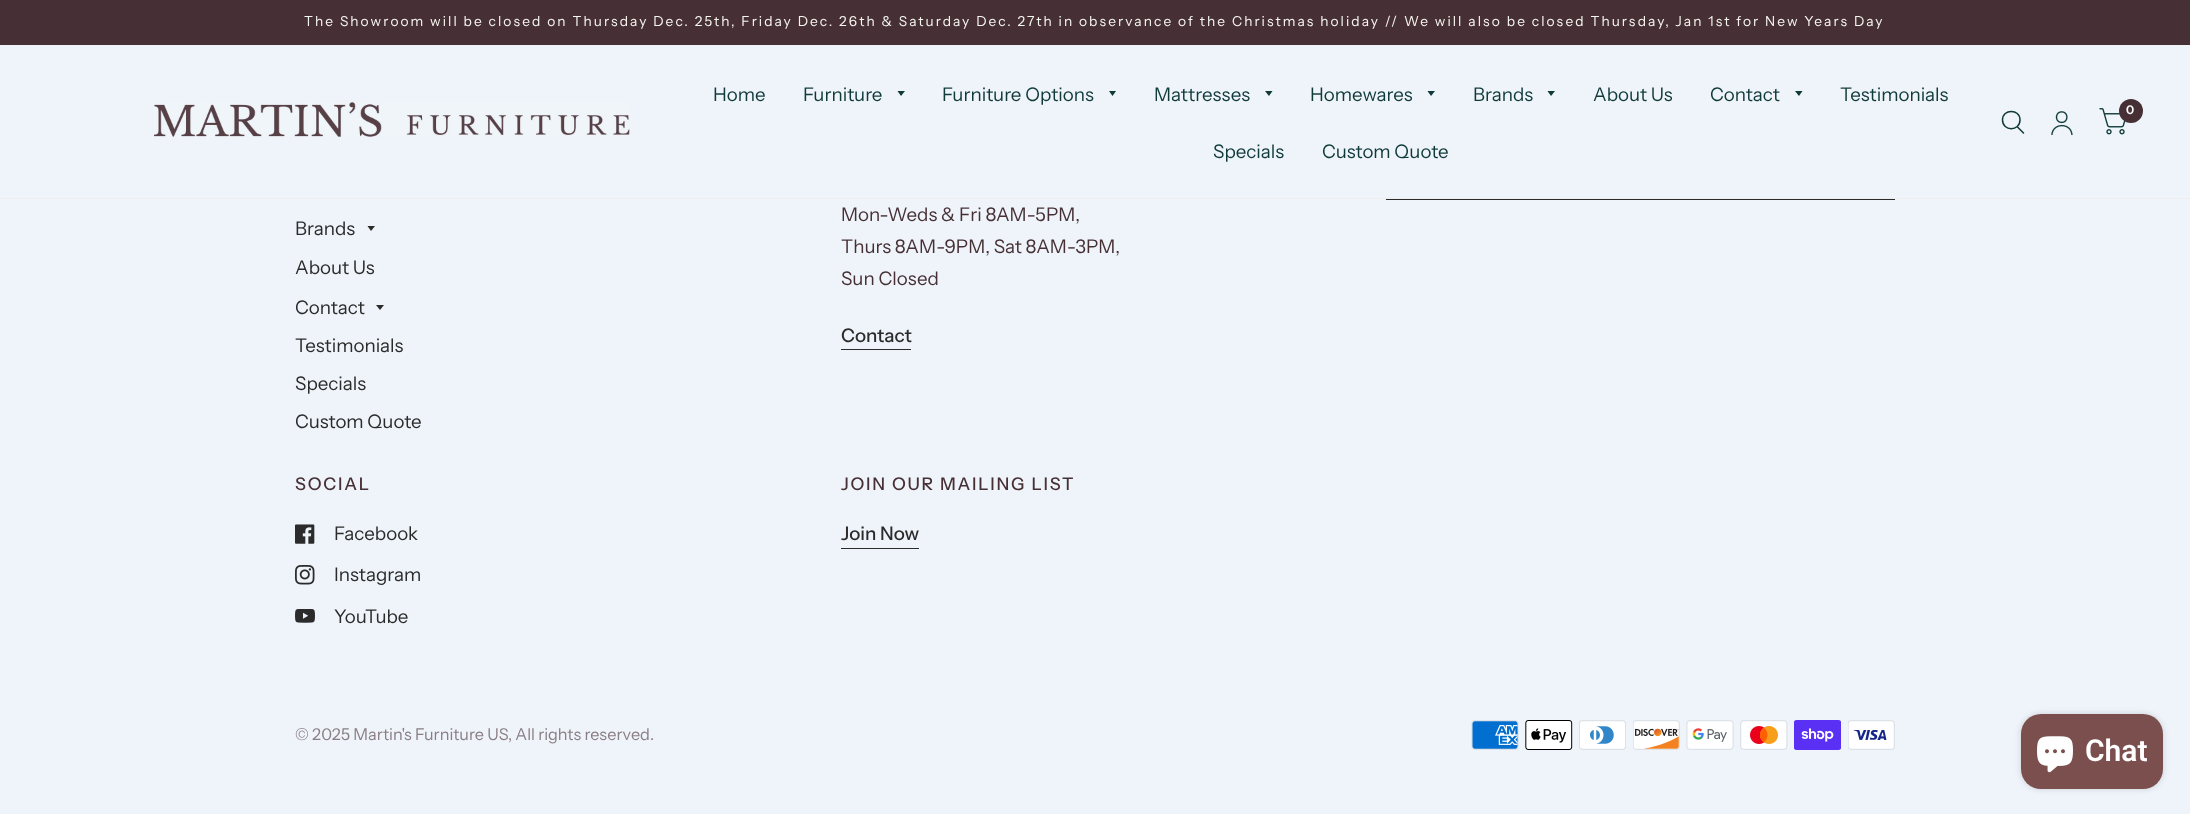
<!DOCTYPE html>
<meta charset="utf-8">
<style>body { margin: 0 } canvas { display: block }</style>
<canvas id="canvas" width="2190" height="814"></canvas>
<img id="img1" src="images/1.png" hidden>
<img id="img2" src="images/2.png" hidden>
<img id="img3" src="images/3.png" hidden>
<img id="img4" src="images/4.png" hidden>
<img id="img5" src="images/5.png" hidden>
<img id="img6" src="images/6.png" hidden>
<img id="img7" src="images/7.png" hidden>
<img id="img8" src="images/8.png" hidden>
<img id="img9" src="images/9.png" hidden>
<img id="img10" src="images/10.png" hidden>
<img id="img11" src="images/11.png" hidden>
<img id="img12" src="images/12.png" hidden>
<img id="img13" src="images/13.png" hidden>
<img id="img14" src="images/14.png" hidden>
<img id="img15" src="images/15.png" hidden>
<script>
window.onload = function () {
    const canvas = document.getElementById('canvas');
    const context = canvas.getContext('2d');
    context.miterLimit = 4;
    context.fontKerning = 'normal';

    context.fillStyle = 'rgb(238, 244, 250)';
    context.fillRect(0, 0, 2190, 814);
    context.fillStyle = 'rgb(71, 48, 53)';
    context.fillRect(0, 0, 2190, 45);
    context.fillStyle = 'rgb(238, 238, 238)';
    context.fillRect(0, 198, 2190, 1);
    context.drawImage(document.getElementById('img1'), 154, 102, 476, 35);
    context.fillStyle = 'rgb(16, 58, 58)';
    context.beginPath();
    context.moveTo(897.5, 91);
    context.lineTo(905, 91);
    context.lineTo(901, 96);
    context.closePath();
    context.fill();
    context.beginPath();
    context.moveTo(1109, 91);
    context.lineTo(1116, 91);
    context.lineTo(1112.5, 96);
    context.closePath();
    context.fill();
    context.beginPath();
    context.moveTo(1265, 91);
    context.lineTo(1272.5, 91);
    context.lineTo(1269, 96);
    context.closePath();
    context.fill();
    context.beginPath();
    context.moveTo(1427.5, 91);
    context.lineTo(1435, 91);
    context.lineTo(1431, 96);
    context.closePath();
    context.fill();
    context.beginPath();
    context.moveTo(1547.5, 91);
    context.lineTo(1555, 91);
    context.lineTo(1551, 96);
    context.closePath();
    context.fill();
    context.beginPath();
    context.moveTo(1795, 91);
    context.lineTo(1802.5, 91);
    context.lineTo(1799, 96);
    context.closePath();
    context.fill();
    context.beginPath();
    context.moveTo(2017.5, 127);
    context.lineTo(2023.5, 133);
    context.moveTo(2020, 120);
    context.bezierCurveTo(2020, 131.5, 2002.5, 131.5, 2002.5, 120);
    context.bezierCurveTo(2002.5, 108.5, 2020, 108.5, 2020, 120);
    context.closePath();
    context.strokeStyle = 'rgb(16, 58, 58)';
    context.lineWidth = 1.5;
    context.lineCap = 'round';
    context.lineJoin = 'round';
    context.stroke();
    context.drawImage(document.getElementById('img2'), 2051, 111, 22, 25);
    context.drawImage(document.getElementById('img3'), 2099, 108, 27, 27);
    context.fillStyle = 'rgb(71, 48, 53)';
    context.beginPath();
    context.arc(2131, 111, 12, 0, 2 * Math.PI);
    context.fill();
    context.fillStyle = 'rgb(43, 43, 43)';
    context.fillRect(1386, 199, 509, 1);
    context.beginPath();
    context.moveTo(367.5, 226);
    context.lineTo(375, 226);
    context.lineTo(371, 231);
    context.closePath();
    context.fill();
    context.beginPath();
    context.moveTo(376, 305);
    context.lineTo(384, 305);
    context.lineTo(380, 310);
    context.closePath();
    context.fill();
    context.fillRect(841, 349, 70, 1);
    context.drawImage(document.getElementById('img4'), 295, 524, 20, 20);
    context.drawImage(document.getElementById('img5'), 295, 565, 20, 20);
    context.drawImage(document.getElementById('img6'), 295, 609, 20, 14);
    context.fillRect(841, 548, 78, 1);
    context.drawImage(document.getElementById('img7'), 1471, 720, 48, 30);
    context.drawImage(document.getElementById('img8'), 1525, 720, 48, 30);
    context.drawImage(document.getElementById('img9'), 1579, 720, 47, 30);
    context.drawImage(document.getElementById('img10'), 1633, 720, 47, 30);
    context.drawImage(document.getElementById('img11'), 1686, 720, 48, 30);
    context.drawImage(document.getElementById('img12'), 1740, 720, 48, 30);
    context.drawImage(document.getElementById('img13'), 1794, 720, 47, 30);
    context.drawImage(document.getElementById('img14'), 1848, 720, 47, 30);
    context.fillStyle = 'rgba(0, 0, 0, 0.15)';
    context.filter = 'blur(3px)';
    context.beginPath();
    context.roundRect(2021, 714, 142, 75, 20);
    context.fill();
    context.filter = 'none';
    context.fillStyle = 'rgb(124, 79, 79)';
    context.beginPath();
    context.roundRect(2021, 714, 142, 75, 20);
    context.fill();
    context.drawImage(document.getElementById('img15'), 2037, 736, 36, 37);
    context.letterSpacing = '2.06px';
    context.font = '13.75px Instrument Sans';
    context.fillStyle = 'rgb(246, 246, 240)';
    context.fillText('The Showroom will be closed on Thursday Dec. 25th, Friday Dec. 26th & Saturday Dec. 27th in observance of the Christmas holiday // We will also be closed Thursday, Jan 1st for New Years Day', 304, 26);
    context.letterSpacing = '0px';
    context.font = '18.75px Instrument Sans';
    context.fillStyle = 'rgb(16, 58, 58)';
    context.fillText('Home', 713, 101);
    context.fillText('Furniture', 803, 101);
    context.fillText('Furniture Options', 942, 101);
    context.fillText('Mattresses', 1154, 101);
    context.fillText('Homewares', 1310, 101);
    context.fillText('Brands', 1473, 101);
    context.fillText('About Us', 1593, 101);
    context.fillText('Contact', 1710, 101);
    context.fillText('Testimonials', 1840, 101);
    context.fillText('Specials', 1213, 158);
    context.fillText('Custom Quote', 1322, 158);
    context.font = '600 12px Instrument Sans';
    context.fillStyle = 'rgb(255, 255, 255)';
    context.fillText('0', 2126, 114);
    context.font = '18.75px Instrument Sans';
    context.fillStyle = 'rgb(43, 43, 43)';
    context.fillText('Brands', 295, 235);
    context.fillText('About Us', 295, 274);
    context.fillText('Contact', 295, 314);
    context.fillText('Testimonials', 295, 352);
    context.fillText('Specials', 295, 390);
    context.fillText('Custom Quote', 295, 428);
    context.fillStyle = 'rgb(71, 48, 53)';
    context.fillText('Mon-Weds & Fri 8AM-5PM,', 841, 221);
    context.fillText('Thurs 8AM-9PM, Sat 8AM-3PM,', 841, 253);
    context.fillText('Sun Closed', 841, 285);
    context.font = '500 18.75px Instrument Sans';
    context.fillStyle = 'rgb(43, 43, 43)';
    context.fillText('Contact', 841, 342);
    context.letterSpacing = '1.75px';
    context.font = '500 17.5px Instrument Sans';
    context.fillStyle = 'rgb(71, 48, 53)';
    context.fillText('SOCIAL', 295, 490);
    context.letterSpacing = '0px';
    context.font = '18.75px Instrument Sans';
    context.fillStyle = 'rgb(43, 43, 43)';
    context.fillText('Facebook', 334, 540);
    context.fillText('Instagram', 334, 581);
    context.fillText('YouTube', 334, 623);
    context.letterSpacing = '1.75px';
    context.font = '500 17.5px Instrument Sans';
    context.fillStyle = 'rgb(71, 48, 53)';
    context.fillText('JOIN OUR MAILING LIST', 841, 490);
    context.letterSpacing = '0px';
    context.font = '500 18.75px Instrument Sans';
    context.fillStyle = 'rgb(43, 43, 43)';
    context.fillText('Join Now', 841, 540);
    context.font = '16.25px Instrument Sans';
    context.fillStyle = 'rgb(138, 126, 132)';
    context.fillText('© 2025 Martin\'s Furniture US, All rights reserved.', 295, 740);
    context.font = '600 30px Roboto';
    context.fillStyle = 'rgb(255, 255, 255)';
    context.fillText('Chat', 2085, 761);
};
</script>
